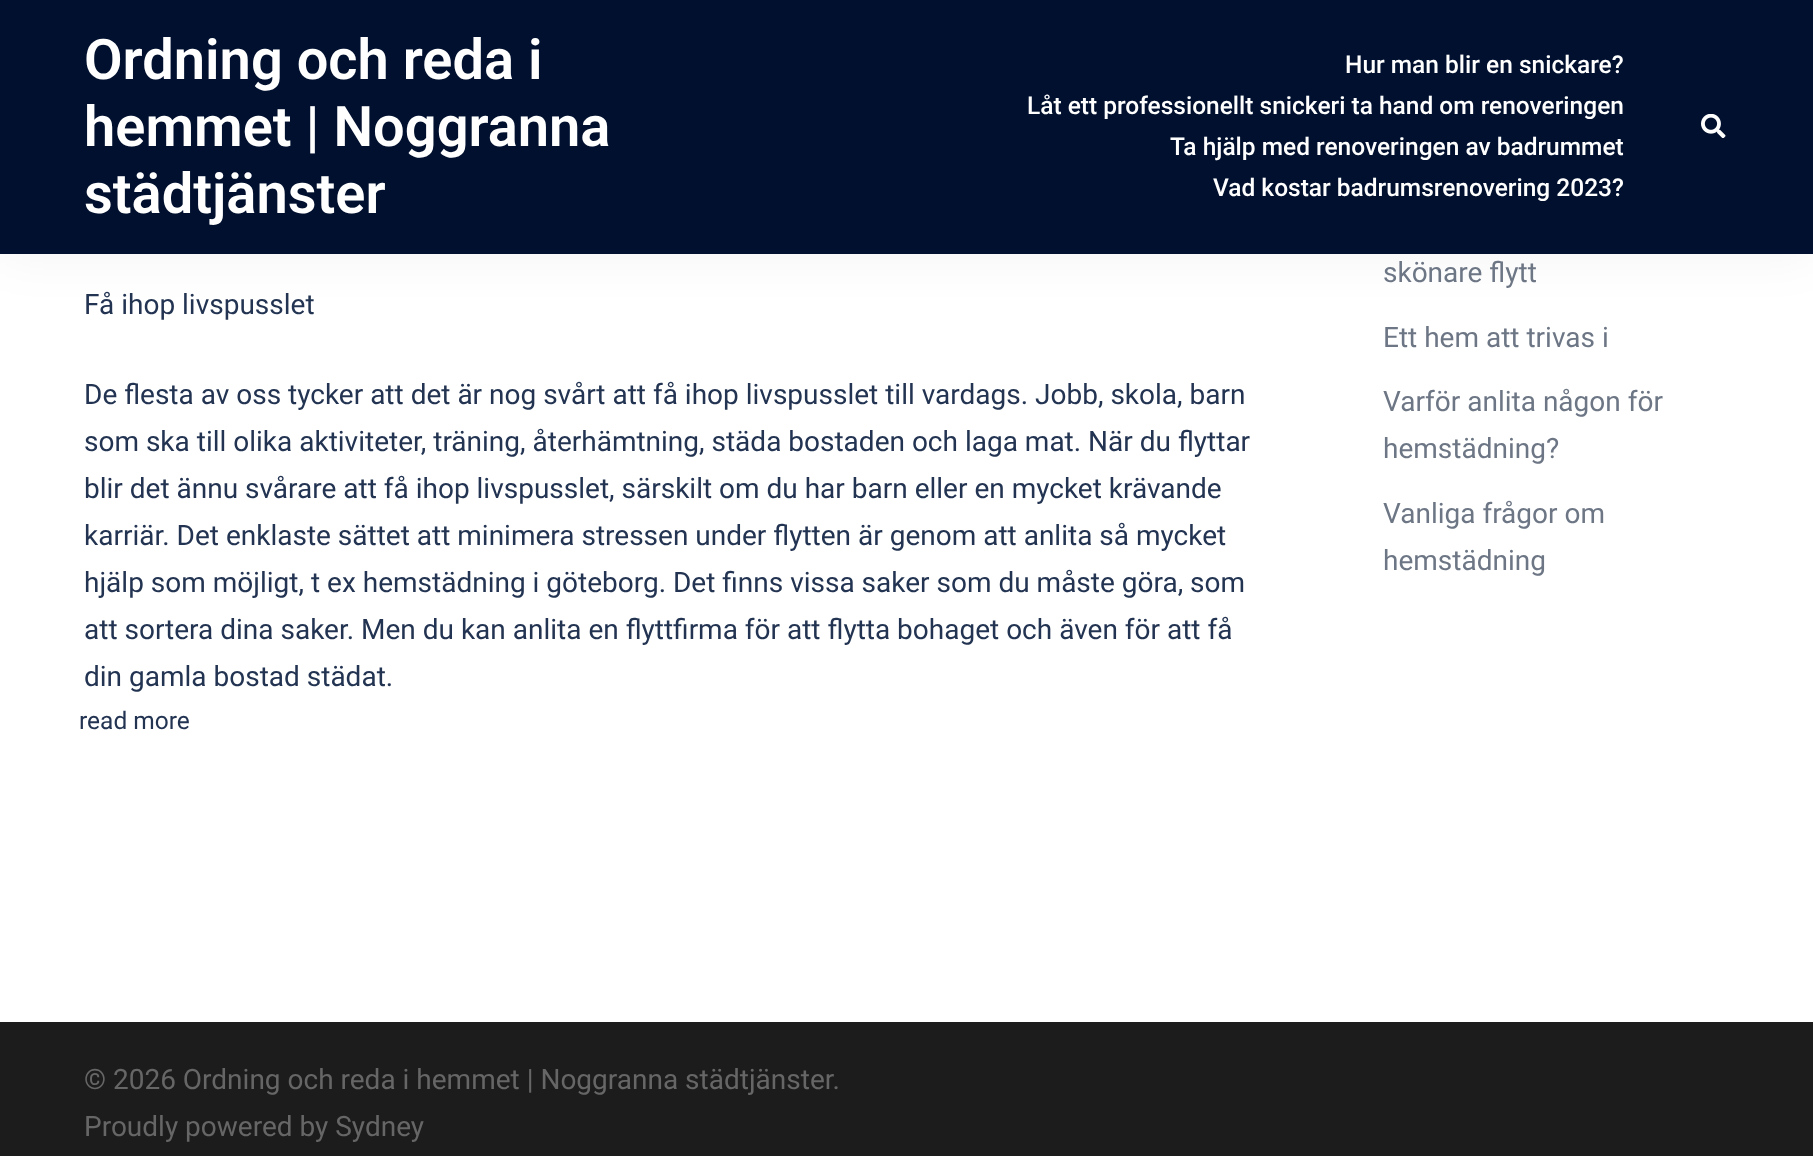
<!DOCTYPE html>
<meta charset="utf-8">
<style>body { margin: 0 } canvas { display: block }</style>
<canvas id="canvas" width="1813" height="1156"></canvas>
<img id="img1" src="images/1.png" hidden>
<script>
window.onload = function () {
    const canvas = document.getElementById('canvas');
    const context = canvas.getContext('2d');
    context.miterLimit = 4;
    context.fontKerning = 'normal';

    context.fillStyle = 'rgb(255, 255, 255)';
    context.fillRect(0, 0, 1813, 1156);
    context.fillStyle = 'rgba(0, 0, 0, 0.05)';
    context.filter = 'blur(26px)';
    context.beginPath();
    context.rect(0, 0, 1813, 254);
    context.fill();
    context.filter = 'none';
    context.fillStyle = 'rgb(0, 16, 46)';
    context.fillRect(0, 0, 1813, 254);
    context.drawImage(document.getElementById('img1'), 1701, 114, 25, 24);
    context.fillStyle = 'rgb(28, 28, 28)';
    context.fillRect(0, 1022, 1813, 134);
    context.font = '600 56px Roboto';
    context.fillStyle = 'rgb(255, 255, 255)';
    context.fillText('Ordning och reda i', 84, 79);
    context.fillText('hemmet | Noggranna', 84, 146);
    context.fillText('städtjänster', 84, 213);
    context.font = '500 24.5px Roboto';
    context.fillText('Hur man blir en snickare?', 1345, 73);
    context.fillText('Låt ett professionellt snickeri ta hand om renoveringen', 1027, 114);
    context.fillText('Ta hjälp med renoveringen av badrummet', 1170, 155);
    context.fillText('Vad kostar badrumsrenovering 2023?', 1213, 196);
    context.font = '28px Roboto';
    context.fillStyle = 'rgb(35, 52, 82)';
    context.fillText('Få ihop livspusslet', 84, 314);
    context.fillText('De flesta av oss tycker att det är nog svårt att få ihop livspusslet till vardags. Jobb, skola, barn', 84, 404);
    context.fillText('som ska till olika aktiviteter, träning, återhämtning, städa bostaden och laga mat. När du flyttar', 84, 451);
    context.fillText('blir det ännu svårare att få ihop livspusslet, särskilt om du har barn eller en mycket krävande', 84, 498);
    context.fillText('karriär. Det enklaste sättet att minimera stressen under flytten är genom att anlita så mycket', 84, 545);
    context.fillText('hjälp som möjligt, t ex hemstädning i göteborg. Det finns vissa saker som du måste göra, som', 84, 592);
    context.fillText('att sortera dina saker. Men du kan anlita en flyttfirma för att flytta bohaget och även för att få', 84, 639);
    context.fillText('din gamla bostad städat.', 84, 686);
    context.font = '24.5px Roboto';
    context.fillText('read more', 79, 729);
    context.font = '28px Roboto';
    context.fillStyle = 'rgb(109, 118, 133)';
    context.fillText('skönare flytt', 1383, 282);
    context.fillText('Ett hem att trivas i', 1383, 347);
    context.fillText('Varför anlita någon för', 1383, 411);
    context.fillText('hemstädning?', 1383, 458);
    context.fillText('Vanliga frågor om', 1383, 523);
    context.fillText('hemstädning', 1383, 570);
    context.fillStyle = 'rgb(102, 102, 102)';
    context.fillText('© 2026 Ordning och reda i hemmet | Noggranna städtjänster.', 84, 1089);
    context.fillText('Proudly powered by Sydney', 84, 1136);
};
</script>
